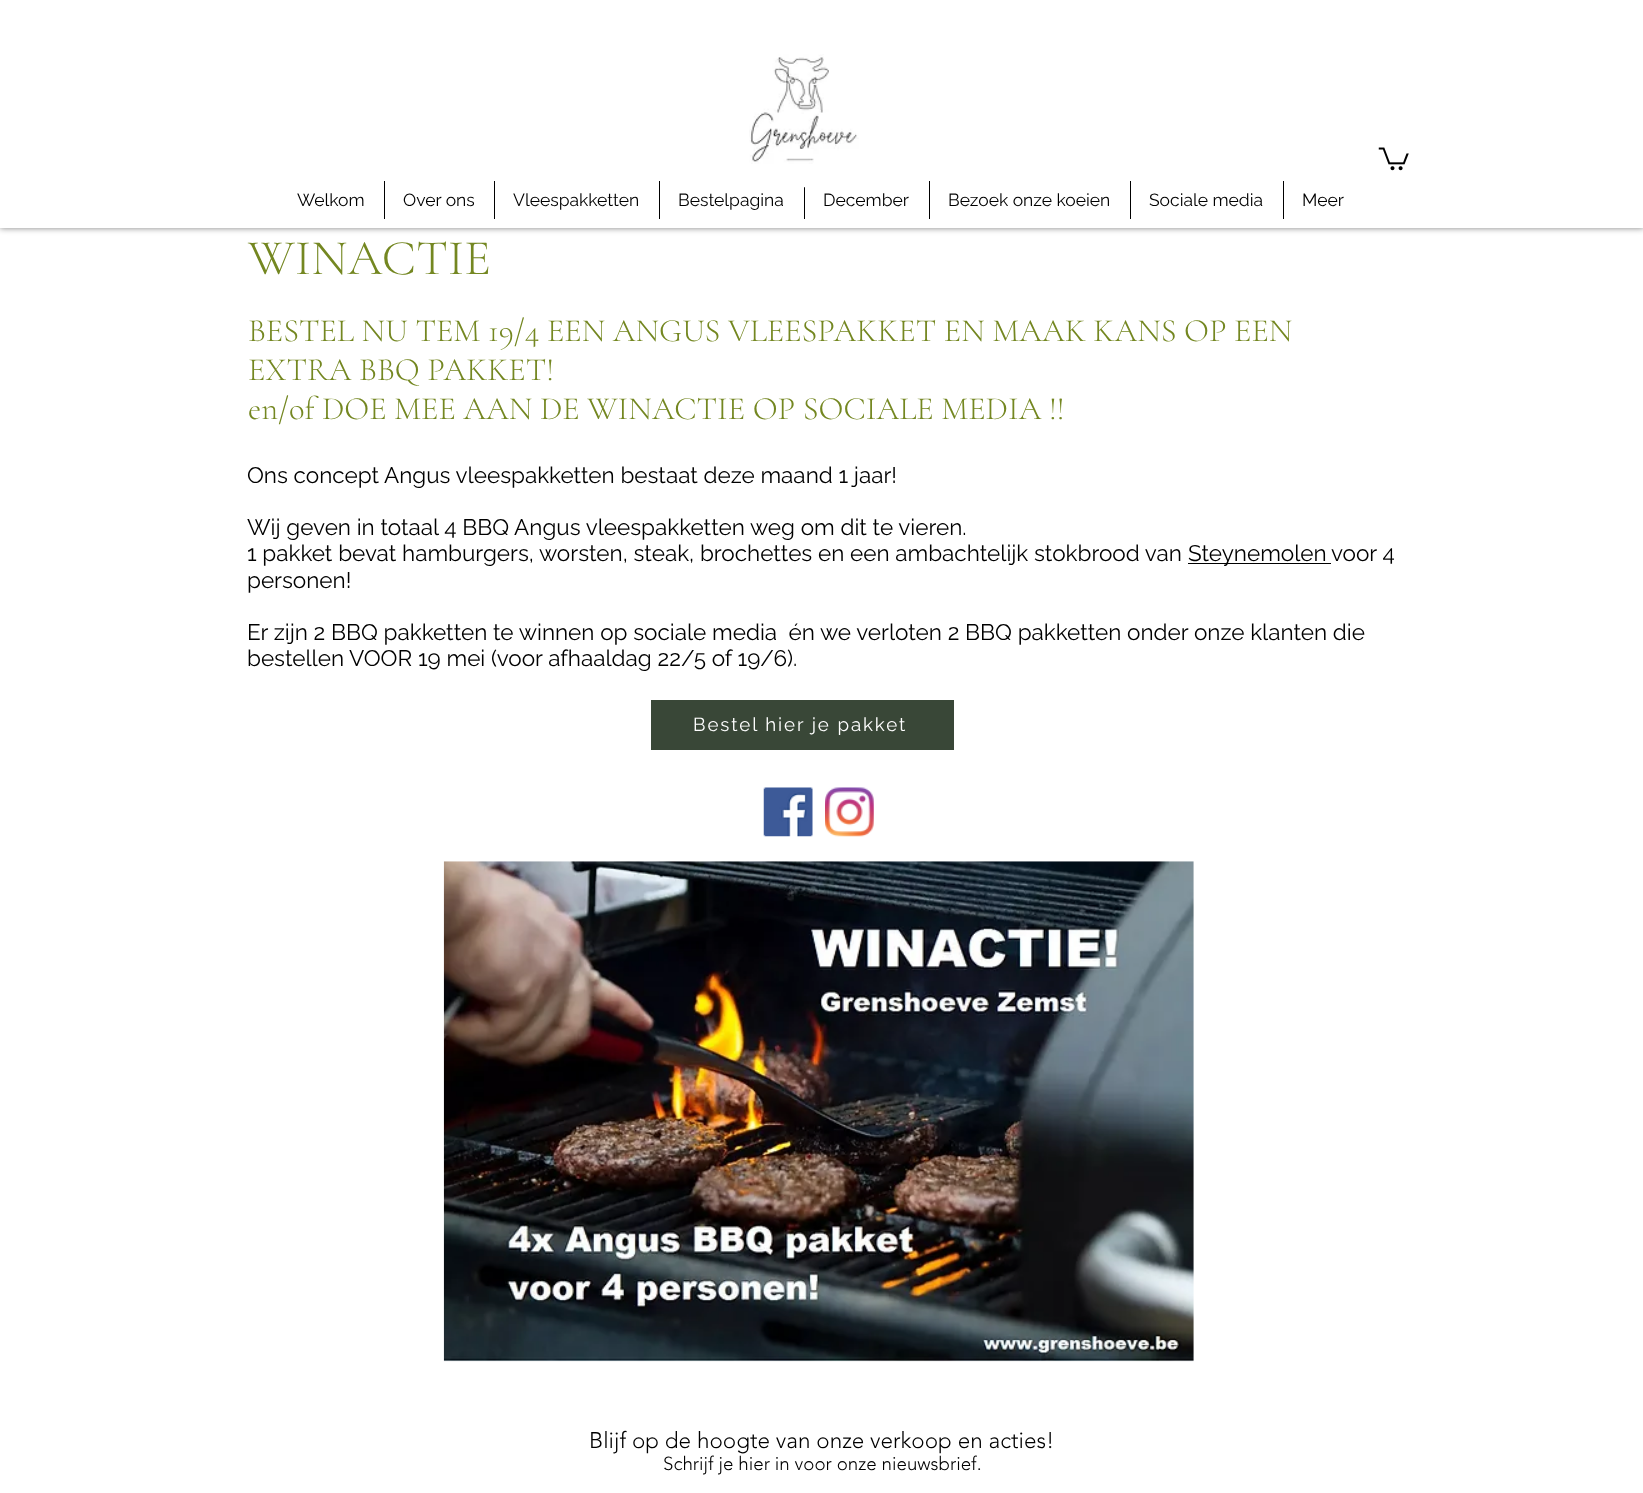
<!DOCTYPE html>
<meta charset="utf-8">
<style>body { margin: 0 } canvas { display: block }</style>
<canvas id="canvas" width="1643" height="1493"></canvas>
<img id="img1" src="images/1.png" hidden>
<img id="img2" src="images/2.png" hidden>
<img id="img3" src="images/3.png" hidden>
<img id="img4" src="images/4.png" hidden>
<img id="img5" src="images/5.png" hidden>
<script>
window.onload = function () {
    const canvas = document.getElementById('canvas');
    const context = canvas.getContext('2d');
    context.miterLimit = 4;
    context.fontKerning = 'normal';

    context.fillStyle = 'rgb(255, 255, 255)';
    context.fillRect(0, 0, 1643, 1493);
    context.save();
    context.beginPath();
    context.moveTo(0, 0);
    context.lineTo(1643, 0);
    context.lineTo(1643, 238);
    context.lineTo(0, 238);
    context.closePath();
    context.moveTo(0, 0);
    context.lineTo(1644, 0);
    context.lineTo(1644, 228);
    context.lineTo(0, 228);
    context.closePath();
    context.clip('evenodd');
    context.fillStyle = 'rgba(0, 0, 0, 0.5)';
    context.filter = 'blur(3px)';
    context.beginPath();
    context.rect(0, 0, 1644, 228);
    context.fill();
    context.filter = 'none';
    context.restore();
    context.fillStyle = 'rgba(255, 255, 255, 0.92)';
    context.fillRect(0, 227, 1643, 1);
    context.fillStyle = 'rgb(0, 0, 0)';
    context.fillRect(804, 181, 1, 38);
    context.drawImage(document.getElementById('img1'), 749, 54, 110, 134);
    context.drawImage(document.getElementById('img2'), 1378, 147, 31, 24);
    context.fillRect(384, 181, 1, 38);
    context.fillRect(494, 181, 1, 38);
    context.fillRect(659, 181, 1, 38);
    context.fillRect(929, 181, 1, 38);
    context.fillRect(1130, 181, 1, 38);
    context.fillRect(1283, 181, 1, 38);
    context.fillRect(1188, 563, 143, 1);
    context.fillStyle = 'rgb(57, 71, 55)';
    context.fillRect(651, 700, 303, 50);
    context.drawImage(document.getElementById('img3'), 763, 787, 50, 50);
    context.drawImage(document.getElementById('img4'), 825, 787, 49, 50);
    context.drawImage(document.getElementById('img5'), 443, 861, 751, 501);
    context.font = '17.5px Raleway';
    context.fillStyle = 'rgb(0, 0, 0)';
    context.fillText('Welkom', 297, 206);
    context.fillText('Over ons', 403, 206);
    context.fillText('Vleespakketten', 513, 206);
    context.fillText('Bestelpagina', 678, 206);
    context.fillText('December', 823, 206);
    context.fillText('Bezoek onze koeien', 948, 206);
    context.fillText('Sociale media', 1149, 206);
    context.fillText('Meer', 1302, 206);
    context.font = '300 50px Cormorant Garamond';
    context.fillStyle = 'rgb(116, 135, 33)';
    context.fillText('WINACTIE', 248, 274);
    context.font = '300 32.5px Cormorant Garamond';
    context.fillText('BESTEL NU TEM 19/4 EEN ANGUS VLEESPAKKET EN MAAK KANS OP EEN', 248, 341);
    context.fillText('EXTRA BBQ PAKKET!', 248, 380);
    context.fillText('en/of DOE MEE AAN DE WINACTIE OP SOCIALE MEDIA !!', 248, 419);
    context.font = '22.5px Raleway';
    context.fillStyle = 'rgb(0, 0, 0)';
    context.fillText('Ons concept Angus vleespakketten bestaat deze maand 1 jaar!', 247, 483);
    context.fillText('Wij geven in totaal 4 BBQ Angus vleespakketten weg om dit te vieren.', 247, 535);
    context.fillText('1 pakket bevat hamburgers, worsten, steak, brochettes en een ambachtelijk stokbrood van', 247, 561);
    context.fillText('Steynemolen', 1188, 561);
    context.fillText('voor 4', 1331, 561);
    context.fillText('personen!', 247, 588);
    context.fillText('Er zijn 2 BBQ pakketten te winnen op sociale media  én we verloten 2 BBQ pakketten onder onze klanten die', 247, 640);
    context.fillText('bestellen VOOR 19 mei (voor afhaaldag 22/5 of 19/6).', 247, 666);
    context.letterSpacing = '1.9px';
    context.font = '18.75px Raleway';
    context.fillStyle = 'rgb(255, 255, 255)';
    context.fillText('Bestel hier je pakket', 693, 731);
    context.letterSpacing = '0px';
    context.font = '300 22.5px "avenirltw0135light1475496"';
    context.fillStyle = 'rgb(0, 0, 0)';
    context.fillText('Blijf op de hoogte van onze verkoop en acties!', 589, 1448);
    context.font = '300 18.75px "avenirltw0135light1475496"';
    context.fillText('Schrijf je hier in voor onze nieuwsbrief.', 663, 1470);
};
</script>
